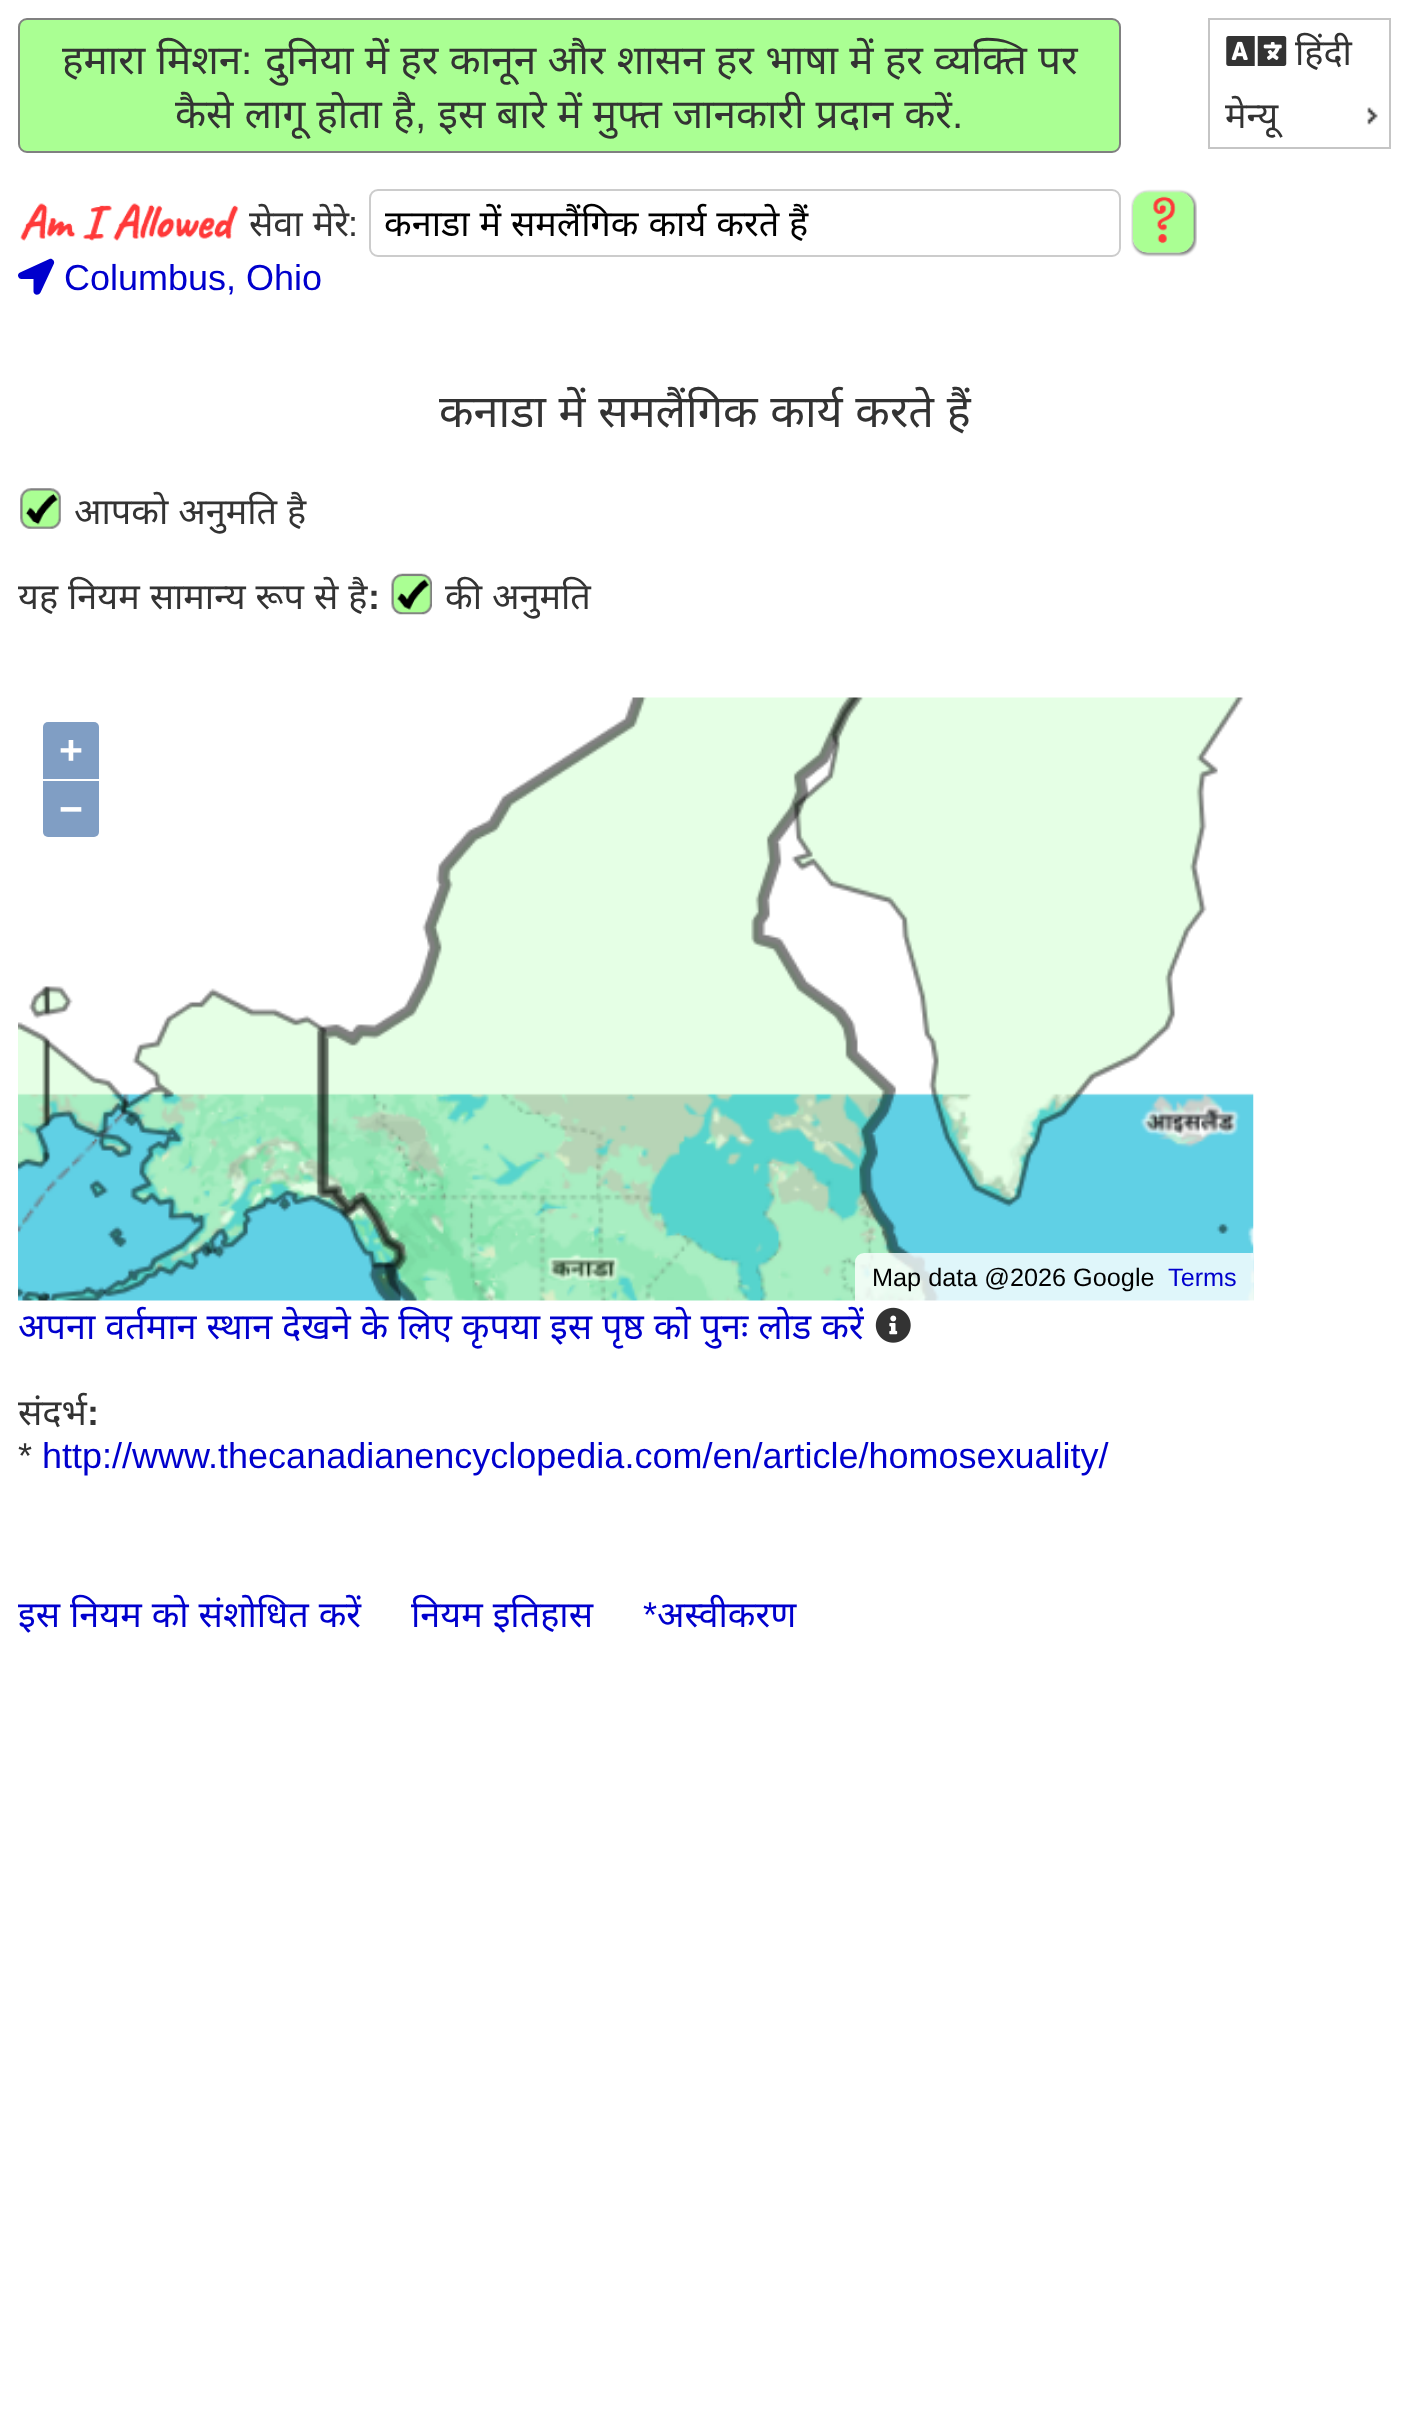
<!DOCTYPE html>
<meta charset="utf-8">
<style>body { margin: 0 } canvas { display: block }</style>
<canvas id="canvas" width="1407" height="2418"></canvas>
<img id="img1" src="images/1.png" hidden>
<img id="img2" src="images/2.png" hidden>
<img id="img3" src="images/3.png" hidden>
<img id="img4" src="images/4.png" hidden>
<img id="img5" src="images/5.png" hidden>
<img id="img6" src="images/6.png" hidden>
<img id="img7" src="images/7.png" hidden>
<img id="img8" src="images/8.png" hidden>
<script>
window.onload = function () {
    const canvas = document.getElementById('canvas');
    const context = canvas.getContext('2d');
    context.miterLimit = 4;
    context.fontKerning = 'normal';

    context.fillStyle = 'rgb(255, 255, 255)';
    context.fillRect(0, 0, 1407, 2418);
    context.fillStyle = 'rgb(170, 255, 147)';
    context.beginPath();
    context.roundRect(19, 19, 1101, 133, 8);
    context.fill();
    context.strokeStyle = 'rgb(128, 128, 128)';
    context.lineWidth = 2;
    context.stroke();
    context.strokeStyle = 'rgb(197, 197, 197)';
    context.strokeRect(1209, 19, 181, 129);
    context.drawImage(document.getElementById('img1'), 1226, 36, 61, 30);
    context.drawImage(document.getElementById('img2'), 1367, 107, 11, 18);
    context.drawImage(document.getElementById('img3'), 20, 203, 219, 38);
    context.beginPath();
    context.roundRect(370, 190, 750, 66, 8);
    context.strokeStyle = 'rgb(204, 204, 204)';
    context.stroke();
    context.drawImage(document.getElementById('img4'), 1131, 189, 66, 68);
    context.fillStyle = 'rgb(0, 0, 205)';
    context.beginPath();
    context.moveTo(49.5, 259);
    context.lineTo(20, 272.5);
    context.bezierCurveTo(16.5, 274, 18, 279, 21.5, 279);
    context.lineTo(33.5, 279);
    context.lineTo(33.5, 291.5);
    context.bezierCurveTo(33.5, 295, 38.5, 296, 40.5, 292.5);
    context.lineTo(54, 263.5);
    context.bezierCurveTo(55, 261, 52, 258, 49.5, 259);
    context.closePath();
    context.fill();
    context.drawImage(document.getElementById('img5'), 20, 488, 41, 41);
    context.drawImage(document.getElementById('img6'), 391, 573, 41, 42);
    context.drawImage(document.getElementById('img7'), 18, 697, 1236, 604);
    context.fillStyle = 'rgb(128, 158, 196)';
    context.beginPath();
    context.roundRect(43, 722, 56, 57, [5, 5, 0, 0]);
    context.fill();
    context.beginPath();
    context.roundRect(43, 781, 56, 56, [0, 0, 5, 5]);
    context.fill();
    context.fillStyle = 'rgba(255, 255, 255, 0.8)';
    context.beginPath();
    context.roundRect(855, 1253, 398, 48, [9, 0, 0, 0]);
    context.fill();
    context.drawImage(document.getElementById('img8'), 875, 1307, 36, 36);
    context.wordSpacing = '0.75px';
    context.font = '40.5px Noto Sans';
    context.fillStyle = 'rgb(51, 51, 51)';
    context.fillText('हमारा मिशन', 62, 74);
    context.wordSpacing = '0px';
    context.font = '40.5px Liberation Sans';
    context.fillText(':', 241, 74);
    context.wordSpacing = '0.75px';
    context.font = '40.5px Noto Sans';
    context.fillText('दुनिया में हर कानून और शासन हर भाषा में हर व्यक्ति पर', 265, 74);
    context.wordSpacing = '0.5px';
    context.fillText('कैसे लागू होता है', 175, 128);
    context.wordSpacing = '0px';
    context.font = '40.5px Liberation Sans';
    context.fillText(',', 415, 128);
    context.wordSpacing = '0.5px';
    context.font = '40.5px Noto Sans';
    context.fillText('इस बारे में मुफ्त जानकारी प्रदान करें', 438, 128);
    context.wordSpacing = '0px';
    context.font = '40.5px Liberation Sans';
    context.fillText('.', 952, 128);
    context.font = '36px Noto Sans';
    context.fillText('हिंदी', 1295, 65);
    context.fillText('मेन्यू', 1225, 128);
    context.wordSpacing = '0.6px';
    context.fillText('सेवा मेरे', 249, 236);
    context.wordSpacing = '0px';
    context.font = '36px Liberation Sans';
    context.fillText(':', 348, 236);
    context.save();
    context.beginPath();
    context.rect(385, 198, 720, 50);
    context.clip();
    context.wordSpacing = '0.6px';
    context.font = '36px Noto Sans';
    context.fillStyle = 'rgb(0, 0, 0)';
    context.fillText('कनाडा में समलैंगिक कार्य करते हैं', 384, 236);
    context.restore();
    context.fillStyle = 'rgb(0, 0, 205)';
    context.fillText('Columbus, Ohio', 64, 290);
    context.wordSpacing = '1px';
    context.font = '45px Noto Sans';
    context.fillStyle = 'rgb(51, 51, 51)';
    context.fillText('कनाडा में समलैंगिक कार्य करते हैं', 439, 427);
    context.wordSpacing = '0.6px';
    context.font = '36px Noto Sans';
    context.fillText('आपको अनुमति है', 74, 524);
    context.fillText('यह नियम सामान्य रूप से है', 18, 609);
    context.wordSpacing = '0px';
    context.font = 'bold 36px Liberation Sans';
    context.fillText(':', 368, 609);
    context.wordSpacing = '0.6px';
    context.font = '36px Noto Sans';
    context.fillText('की अनुमति', 445, 609);
    context.wordSpacing = '0px';
    context.font = 'bold 41px Liberation Sans';
    context.fillStyle = 'rgb(255, 255, 255)';
    context.fillText('+', 59, 764);
    context.fillText('−', 59, 823);
    context.font = '25.25px Liberation Sans';
    context.fillStyle = 'rgb(0, 0, 0)';
    context.fillText('Map data @2026 Google', 872, 1286);
    context.fillStyle = 'rgb(0, 0, 205)';
    context.fillText('Terms', 1168, 1286);
    context.wordSpacing = '0.6px';
    context.font = '36px Noto Sans';
    context.fillText('अपना वर्तमान स्थान देखने के लिए कृपया इस पृष्ठ को पुनः लोड करें', 18, 1339);
    context.wordSpacing = '0px';
    context.fillStyle = 'rgb(51, 51, 51)';
    context.fillText('संदर्भ', 18, 1425);
    context.font = 'bold 36px Liberation Sans';
    context.fillText(':', 87, 1425);
    context.font = '36px Liberation Sans';
    context.fillText('*', 18, 1468);
    context.fillStyle = 'rgb(0, 0, 205)';
    context.fillText('http://www.thecanadianencyclopedia.com/en/article/homosexuality/', 42, 1468);
    context.wordSpacing = '0.6px';
    context.font = '36px Noto Sans';
    context.fillText('इस नियम को संशोधित करें', 18, 1627);
    context.fillText('नियम इतिहास', 411, 1627);
    context.wordSpacing = '0px';
    context.font = '36px Liberation Sans';
    context.fillText('*', 643, 1627);
    context.font = '36px Noto Sans';
    context.fillText('अस्वीकरण', 657, 1627);
};
</script>
